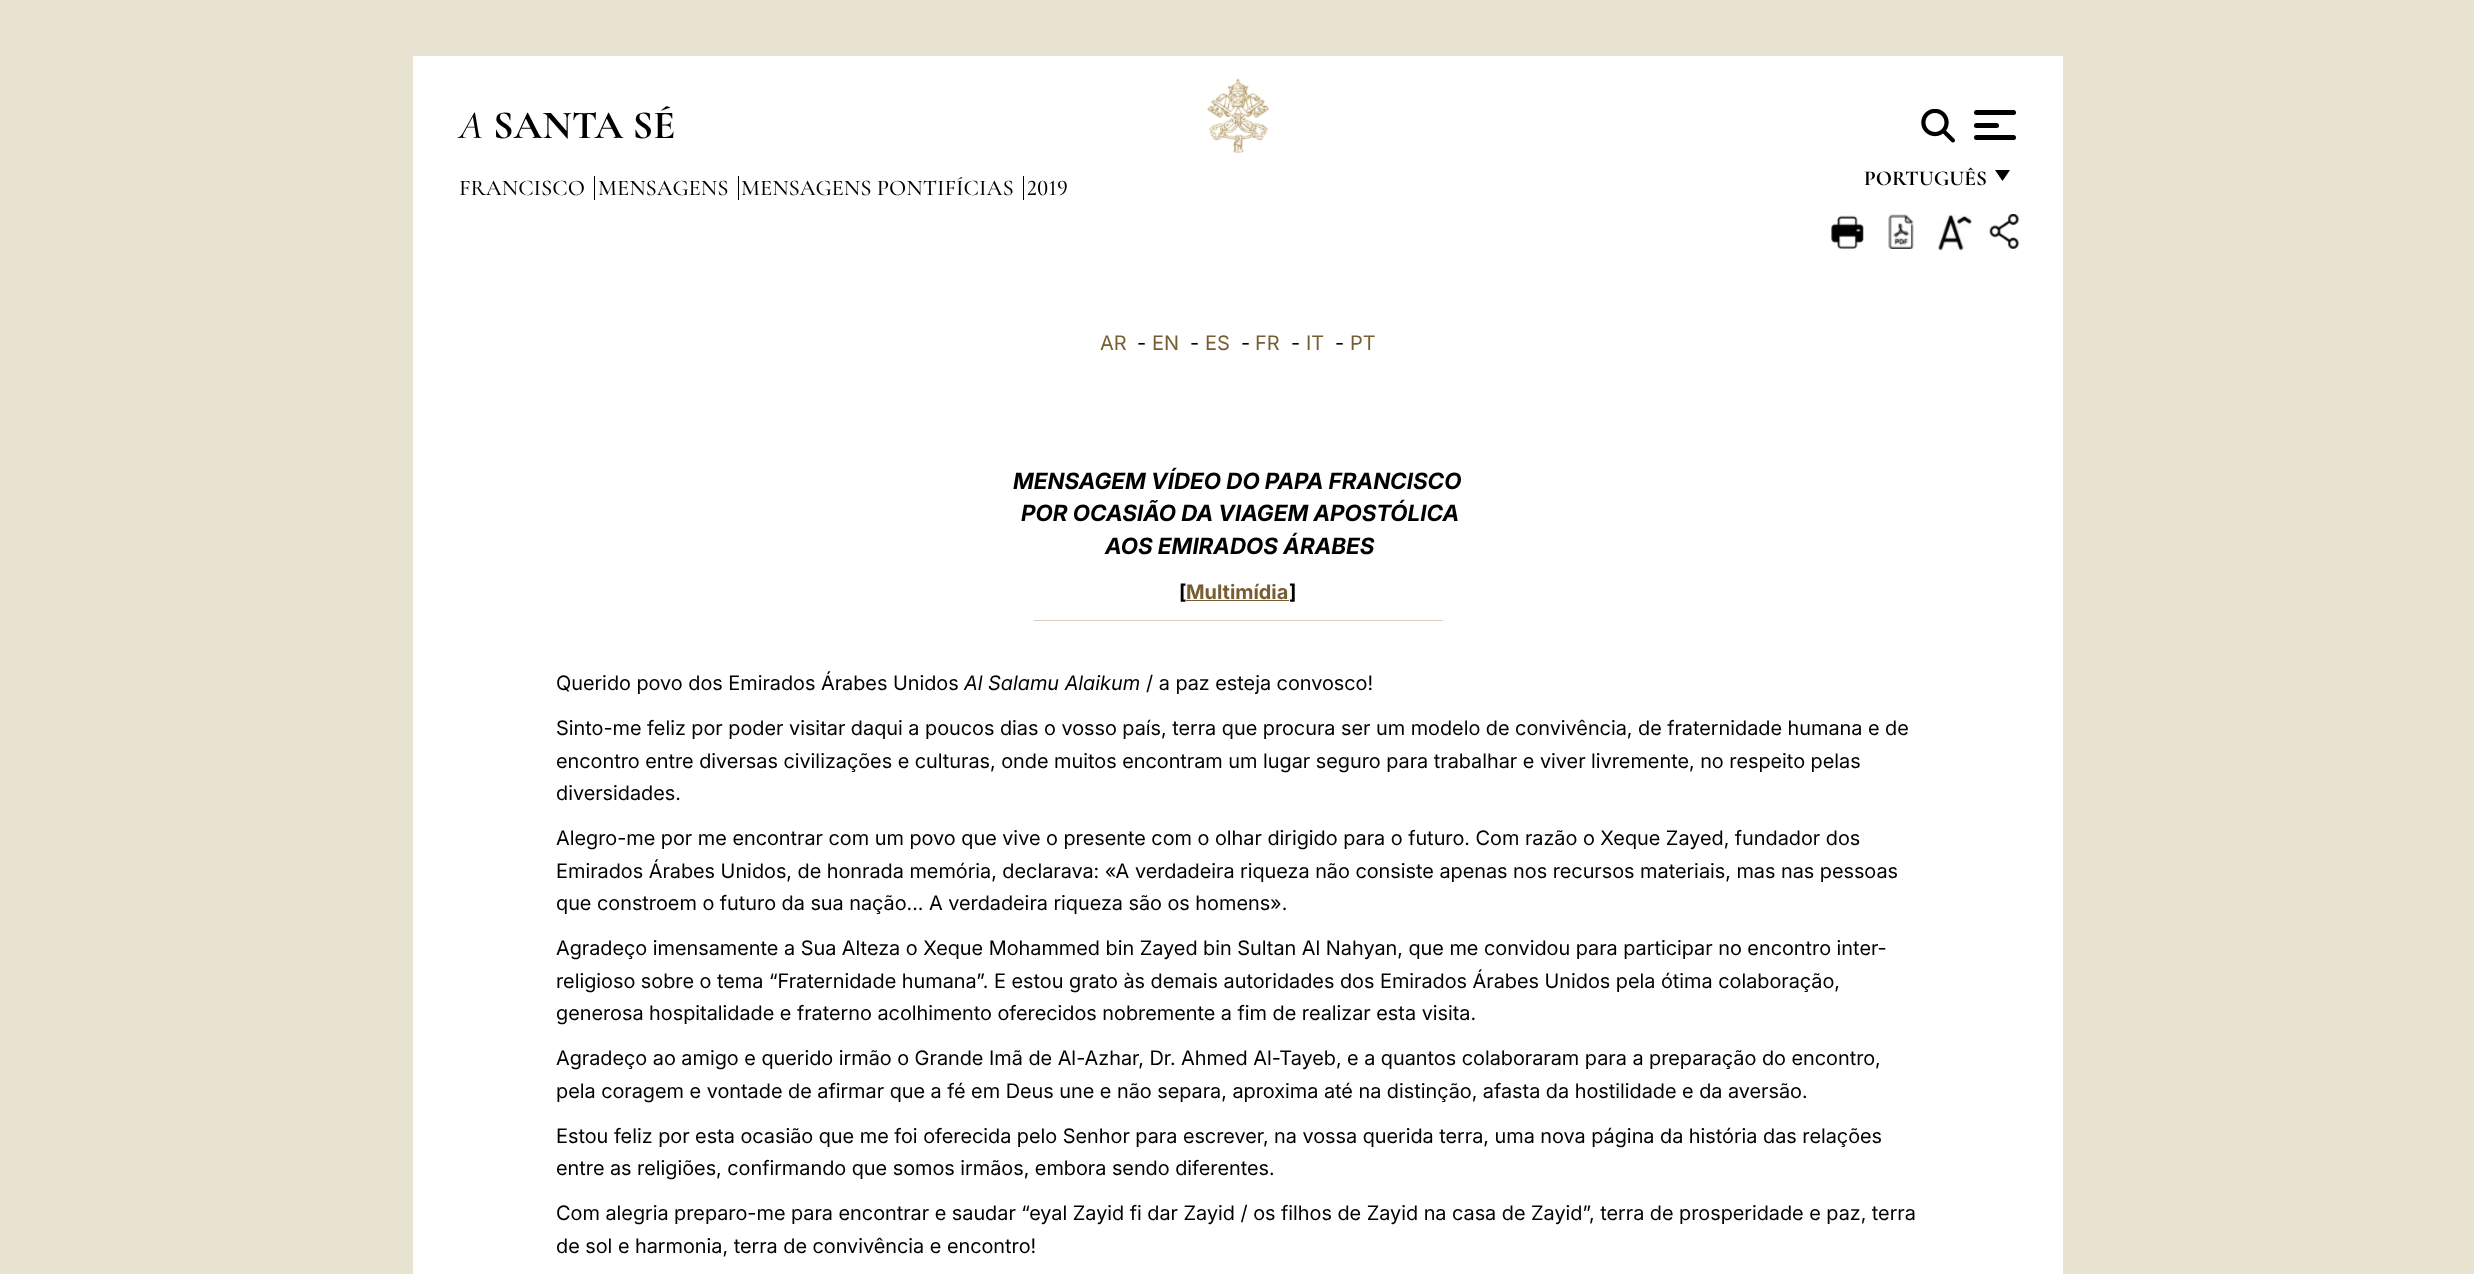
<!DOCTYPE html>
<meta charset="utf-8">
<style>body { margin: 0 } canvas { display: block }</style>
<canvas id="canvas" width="2474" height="1274"></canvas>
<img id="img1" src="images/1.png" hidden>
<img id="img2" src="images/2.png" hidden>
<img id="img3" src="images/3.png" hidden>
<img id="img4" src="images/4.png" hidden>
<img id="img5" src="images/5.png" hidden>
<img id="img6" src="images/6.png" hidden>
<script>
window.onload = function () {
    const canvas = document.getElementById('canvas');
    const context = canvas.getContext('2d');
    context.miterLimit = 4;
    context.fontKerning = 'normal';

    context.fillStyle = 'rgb(232, 226, 209)';
    context.fillRect(0, 0, 2474, 1274);
    context.fillStyle = 'rgb(255, 255, 255)';
    context.fillRect(413, 56, 1650, 1218);
    context.drawImage(document.getElementById('img1'), 1207, 78, 63, 75);
    context.drawImage(document.getElementById('img2'), 1921, 109, 34, 34);
    context.fillStyle = 'rgb(0, 0, 0)';
    context.beginPath();
    context.roundRect(1974, 110, 42, 5, 2.5);
    context.fill();
    context.beginPath();
    context.roundRect(1974, 123, 25, 5, 2.5);
    context.fill();
    context.beginPath();
    context.roundRect(1974, 135, 42, 5, 2.5);
    context.fill();
    context.beginPath();
    context.moveTo(1995, 170);
    context.lineTo(2010, 170);
    context.lineTo(2002.5, 181);
    context.closePath();
    context.fill();
    context.fillRect(594, 176, 1, 24);
    context.fillRect(738, 176, 1, 24);
    context.fillRect(1023, 176, 1, 24);
    context.drawImage(document.getElementById('img3'), 1831, 215, 33, 34);
    context.drawImage(document.getElementById('img4'), 1888, 214, 26, 35);
    context.drawImage(document.getElementById('img5'), 1938, 214, 34, 37);
    context.drawImage(document.getElementById('img6'), 1989, 214, 31, 35);
    context.fillStyle = 'rgb(118, 94, 50)';
    context.fillRect(1186, 600, 103, 1);
    context.fillStyle = 'rgb(217, 204, 191)';
    context.fillRect(1034, 620, 409, 1);
    context.font = 'italic 500 40px Cormorant Garamond';
    context.fillStyle = 'rgb(0, 0, 0)';
    context.fillText('A', 459, 138);
    context.font = 'bold 40px Cormorant Garamond';
    context.fillText('SANTA SÉ', 493, 138);
    context.font = 'bold 21.25px Cormorant Garamond';
    context.fillText('PORTUGUÊS', 1864, 185);
    context.font = '500 22.5px Cormorant Garamond';
    context.fillText('FRANCISCO', 459, 195);
    context.fillText('MENSAGENS', 598, 195);
    context.fillText('MENSAGENS PONTIFÍCIAS', 741, 195);
    context.font = '500 22.5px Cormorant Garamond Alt';
    context.fillText('2019', 1027, 195);
    context.font = '20px Inter';
    context.fillStyle = 'rgb(118, 94, 50)';
    context.fillText('AR', 1100, 350);
    context.font = '20px "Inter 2"';
    context.fillStyle = 'rgb(0, 0, 0)';
    context.fillText('-', 1137, 350);
    context.font = '20px Inter';
    context.fillStyle = 'rgb(118, 94, 50)';
    context.fillText('EN', 1152, 350);
    context.font = '20px "Inter 2"';
    context.fillStyle = 'rgb(0, 0, 0)';
    context.fillText('-', 1190, 350);
    context.font = '20px Inter';
    context.fillStyle = 'rgb(118, 94, 50)';
    context.fillText('ES', 1205, 350);
    context.font = '20px "Inter 2"';
    context.fillStyle = 'rgb(0, 0, 0)';
    context.fillText('-', 1241, 350);
    context.font = '20px Inter';
    context.fillStyle = 'rgb(118, 94, 50)';
    context.fillText('FR', 1255, 350);
    context.font = '20px "Inter 2"';
    context.fillStyle = 'rgb(0, 0, 0)';
    context.fillText('-', 1291, 350);
    context.fillStyle = 'rgb(118, 94, 50)';
    context.fillText('IT', 1306, 350);
    context.fillStyle = 'rgb(0, 0, 0)';
    context.fillText('-', 1335, 350);
    context.fillStyle = 'rgb(118, 94, 50)';
    context.fillText('PT', 1350, 350);
    context.font = 'italic bold 22.5px Inter';
    context.fillStyle = 'rgb(0, 0, 0)';
    context.fillText('MENSAGEM VÍDEO DO PAPA FRANCISCO', 1013, 489);
    context.fillText('POR OCASIÃO DA VIAGEM APOSTÓLICA', 1021, 521);
    context.fillText('AOS EMIRADOS ÁRABES', 1105, 554);
    context.font = 'bold 20px Inter';
    context.fillText('[', 1179, 599);
    context.fillStyle = 'rgb(118, 94, 50)';
    context.fillText('Multimídia', 1186, 599);
    context.fillStyle = 'rgb(0, 0, 0)';
    context.fillText(']', 1289, 599);
    context.font = '20px "Inter 2"';
    context.fillText('Querido povo dos Emirados Árabes Unidos', 556, 690);
    context.font = 'italic 20px Inter';
    context.fillText('Al Salamu Alaikum', 964, 690);
    context.font = '20px "Inter 2"';
    context.fillText('/ a paz esteja convosco!', 1146, 690);
    context.fillText('Sinto-me feliz por poder visitar daqui a poucos dias o vosso país, terra que procura ser um modelo de convivência, de fraternidade humana e de', 556, 735);
    context.fillText('encontro entre diversas civilizações e culturas, onde muitos encontram um lugar seguro para trabalhar e viver livremente, no respeito pelas', 556, 768);
    context.fillText('diversidades.', 556, 800);
    context.fillText('Alegro-me por me encontrar com um povo que vive o presente com o olhar dirigido para o futuro. Com razão o Xeque Zayed, fundador dos', 556, 845);
    context.fillText('Emirados Árabes Unidos, de honrada memória, declarava: «A verdadeira riqueza não consiste apenas nos recursos materiais, mas nas pessoas', 556, 878);
    context.fillText('que constroem o futuro da sua nação... A verdadeira riqueza são os homens».', 556, 910);
    context.fillText('Agradeço imensamente a Sua Alteza o Xeque Mohammed bin Zayed bin Sultan Al Nahyan, que me convidou para participar no encontro inter-', 556, 955);
    context.fillText('religioso sobre o tema “Fraternidade humana”. E estou grato às demais autoridades dos Emirados Árabes Unidos pela ótima colaboração,', 556, 988);
    context.fillText('generosa hospitalidade e fraterno acolhimento oferecidos nobremente a fim de realizar esta visita.', 556, 1020);
    context.fillText('Agradeço ao amigo e querido irmão o Grande Imã de Al-Azhar, Dr. Ahmed Al-Tayeb, e a quantos colaboraram para a preparação do encontro,', 556, 1065);
    context.fillText('pela coragem e vontade de afirmar que a fé em Deus une e não separa, aproxima até na distinção, afasta da hostilidade e da aversão.', 556, 1098);
    context.fillText('Estou feliz por esta ocasião que me foi oferecida pelo Senhor para escrever, na vossa querida terra, uma nova página da história das relações', 556, 1143);
    context.fillText('entre as religiões, confirmando que somos irmãos, embora sendo diferentes.', 556, 1175);
    context.fillText('Com alegria preparo-me para encontrar e saudar “eyal Zayid fi dar Zayid / os filhos de Zayid na casa de Zayid”, terra de prosperidade e paz, terra', 556, 1220);
    context.fillText('de sol e harmonia, terra de convivência e encontro!', 556, 1253);
};
</script>
